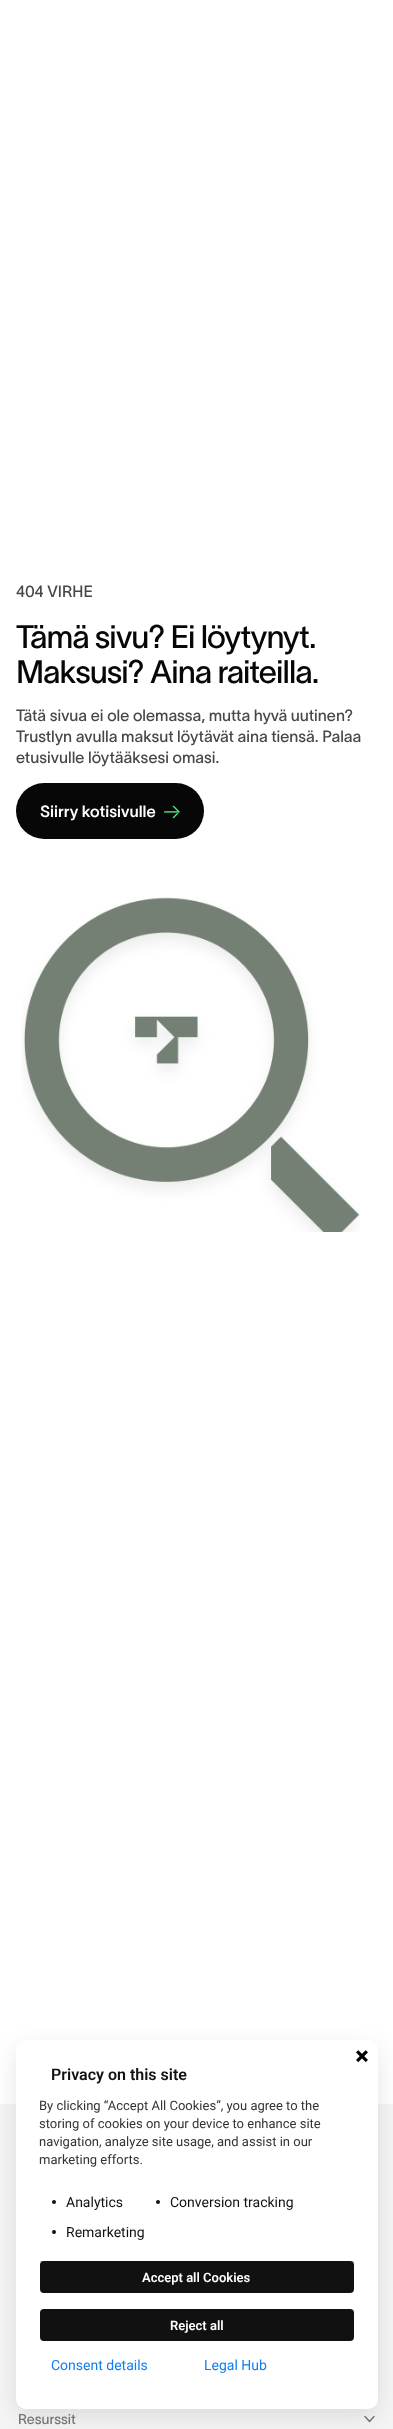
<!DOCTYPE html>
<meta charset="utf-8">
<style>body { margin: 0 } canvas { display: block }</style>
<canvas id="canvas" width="393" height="2429"></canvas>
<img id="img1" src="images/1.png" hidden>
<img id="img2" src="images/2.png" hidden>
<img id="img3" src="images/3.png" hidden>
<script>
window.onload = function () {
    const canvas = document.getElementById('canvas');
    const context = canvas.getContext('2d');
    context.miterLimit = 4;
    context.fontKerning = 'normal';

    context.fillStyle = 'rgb(255, 255, 255)';
    context.fillRect(0, 0, 393, 2429);
    context.fillStyle = 'rgb(7, 7, 7)';
    context.beginPath();
    context.roundRect(16, 783, 188, 56, 28);
    context.fill();
    context.drawImage(document.getElementById('img1'), 164, 805, 16, 14);
    context.drawImage(document.getElementById('img2'), 21, 897, 339, 335);
    context.fillStyle = 'rgb(245, 245, 245)';
    context.fillRect(0, 2104, 393, 325);
    context.beginPath();
    context.moveTo(374, 2416.5);
    context.lineTo(369.5, 2421.5);
    context.lineTo(365, 2416.5);
    context.strokeStyle = 'rgb(119, 117, 116)';
    context.lineWidth = 1.4;
    context.lineCap = 'round';
    context.lineJoin = 'round';
    context.stroke();
    context.fillStyle = 'rgba(0, 0, 0, 0.1)';
    context.filter = 'blur(12px)';
    context.beginPath();
    context.roundRect(16, 2048, 362, 369, 10);
    context.fill();
    context.filter = 'none';
    context.fillStyle = 'rgb(255, 255, 255)';
    context.beginPath();
    context.roundRect(16, 2040, 362, 369, 10);
    context.fill();
    context.drawImage(document.getElementById('img3'), 356, 2050, 12, 13);
    context.fillStyle = 'rgb(19, 19, 19)';
    context.beginPath();
    context.arc(54, 2202, 2, 0, 2 * Math.PI);
    context.fill();
    context.beginPath();
    context.arc(158, 2202, 2, 0, 2 * Math.PI);
    context.fill();
    context.beginPath();
    context.arc(54, 2232, 2, 0, 2 * Math.PI);
    context.fill();
    context.fillStyle = 'rgb(204, 204, 204)';
    context.fillRect(40, 2261, 314, 1);
    context.fillStyle = 'rgb(17, 17, 17)';
    context.beginPath();
    context.roundRect(40, 2261, 314, 32, 4);
    context.fill();
    context.beginPath();
    context.roundRect(40, 2309, 314, 32, 4);
    context.fill();
    context.font = '16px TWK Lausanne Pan';
    context.fillStyle = 'rgb(71, 71, 71)';
    context.fillText('404 VIRHE', 16, 597);
    context.letterSpacing = '-1px';
    context.font = '32px TWK Lausanne Pan';
    context.fillStyle = 'rgb(7, 7, 7)';
    context.fillText('Tämä sivu? Ei löytynyt.', 16, 648);
    context.fillText('Maksusi? Aina raiteilla.', 16, 683);
    context.letterSpacing = '0px';
    context.font = '16px TWK Lausanne Pan';
    context.fillStyle = 'rgb(71, 71, 71)';
    context.fillText('Tätä sivua ei ole olemassa, mutta hyvä uutinen?', 16, 721);
    context.fillText('Trustlyn avulla maksut löytävät aina tiensä. Palaa', 16, 742);
    context.fillText('etusivulle löytääksesi omasi.', 16, 763);
    context.font = '500 16px TWK Lausanne Pan';
    context.fillStyle = 'rgb(255, 255, 255)';
    context.fillText('Siirry kotisivulle', 40, 817);
    context.font = '600 16px Roboto';
    context.fillStyle = 'rgb(17, 17, 17)';
    context.fillText('Privacy on this site', 51, 2080);
    context.font = '13px Roboto';
    context.fillStyle = 'rgb(51, 51, 51)';
    context.fillText('By clicking “Accept All Cookies”, you agree to the', 39, 2110);
    context.fillText('storing of cookies on your device to enhance site', 39, 2128);
    context.fillText('navigation, analyze site usage, and assist in our', 39, 2146);
    context.fillText('marketing efforts.', 39, 2164);
    context.font = '14px Roboto';
    context.fillStyle = 'rgb(17, 17, 17)';
    context.fillText('Analytics', 66, 2207);
    context.fillText('Conversion tracking', 170, 2207);
    context.fillText('Remarketing', 66, 2237);
    context.font = '600 13px Roboto';
    context.fillStyle = 'rgb(255, 255, 255)';
    context.fillText('Accept all Cookies', 142, 2282);
    context.fillText('Reject all', 170, 2330);
    context.font = '14px Roboto';
    context.fillStyle = 'rgb(16, 126, 241)';
    context.fillText('Consent details', 51, 2370);
    context.fillText('Legal Hub', 204, 2370);
    context.font = '14px TWK Lausanne Pan';
    context.fillStyle = 'rgb(119, 117, 116)';
    context.fillText('Resurssit', 18, 2424);
};
</script>
